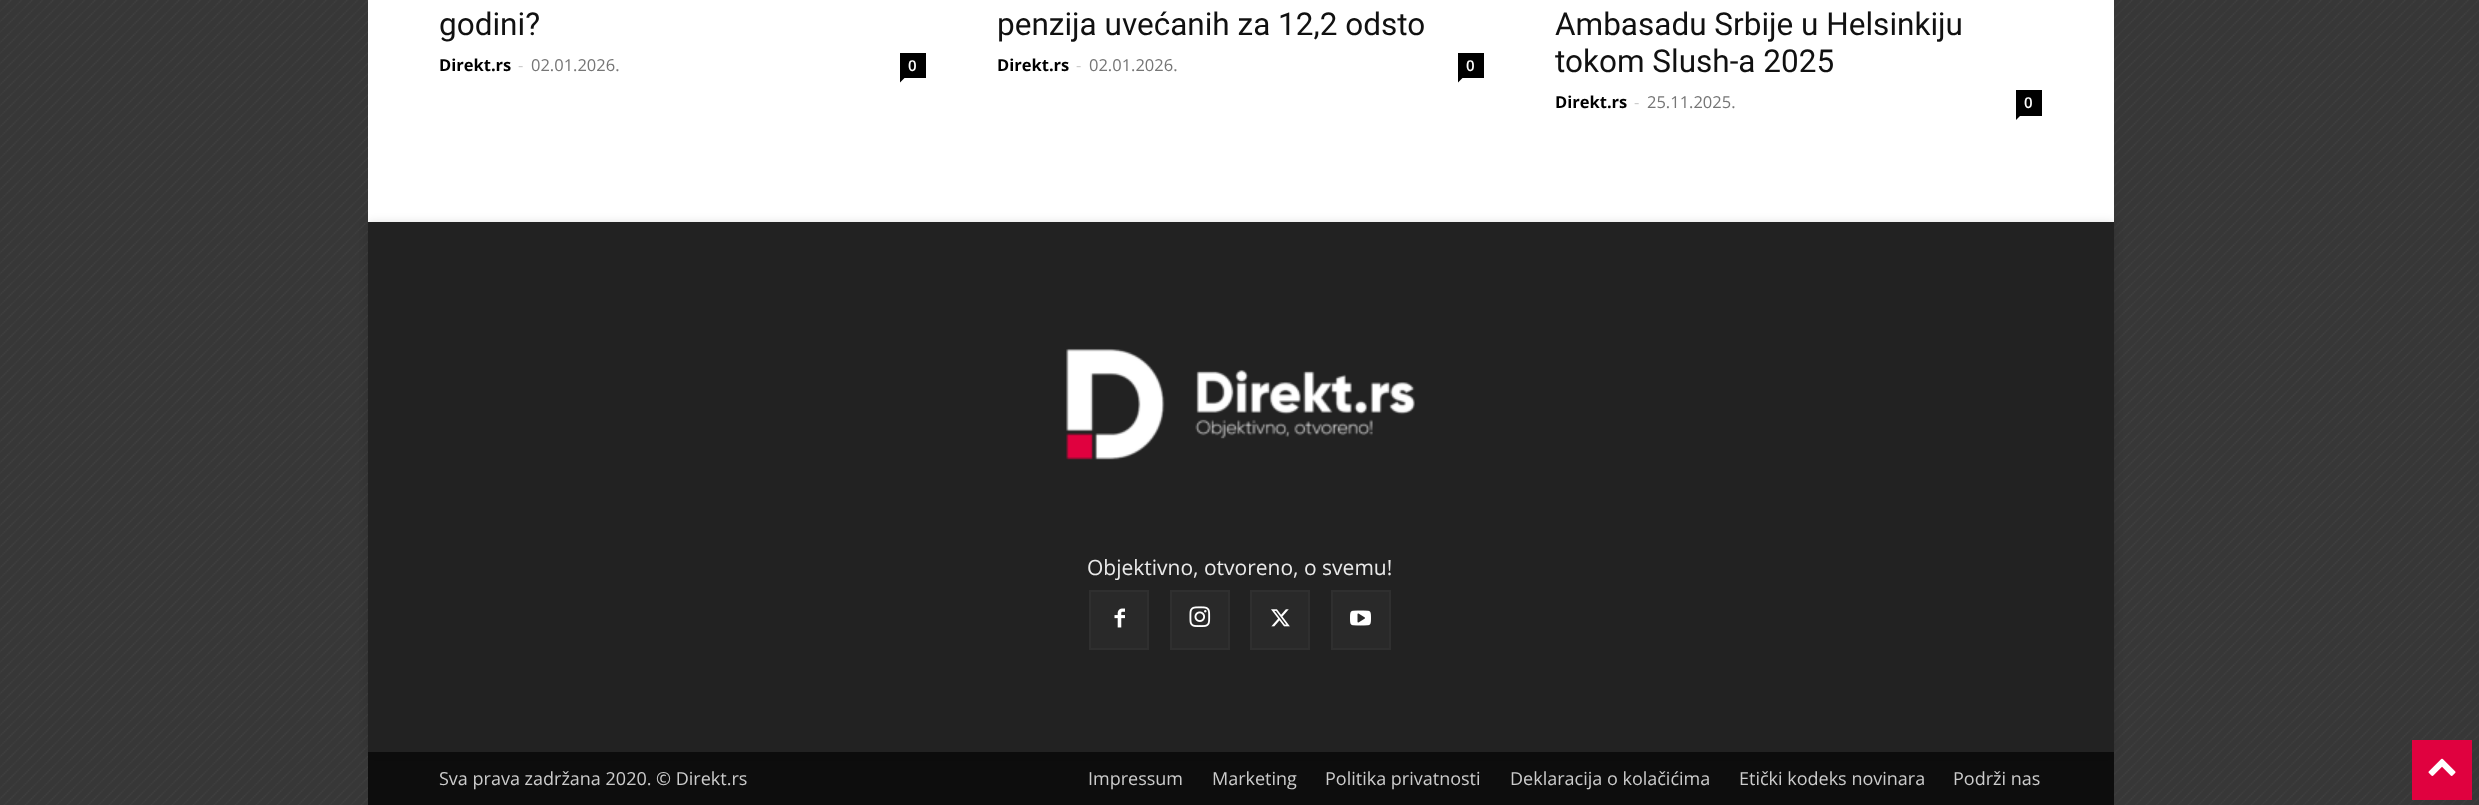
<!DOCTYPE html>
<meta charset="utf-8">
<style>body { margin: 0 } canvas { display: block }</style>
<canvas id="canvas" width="2479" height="805"></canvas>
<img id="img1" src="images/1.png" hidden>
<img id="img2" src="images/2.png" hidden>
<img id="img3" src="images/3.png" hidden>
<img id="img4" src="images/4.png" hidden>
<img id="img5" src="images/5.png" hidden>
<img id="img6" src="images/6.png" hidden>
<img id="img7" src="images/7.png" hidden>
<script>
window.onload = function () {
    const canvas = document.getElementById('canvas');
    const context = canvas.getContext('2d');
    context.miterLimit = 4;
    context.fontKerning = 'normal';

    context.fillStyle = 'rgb(255, 255, 255)';
    context.fillRect(0, 0, 2479, 805);
    context.drawImage(document.getElementById('img1'), 0, 0, 2479, 805);
    context.fillRect(368, 0, 1746, 222);
    context.fillStyle = 'rgb(0, 0, 0)';
    context.fillRect(900, 53, 26, 25);
    context.beginPath();
    context.moveTo(900, 78);
    context.lineTo(904.5, 78);
    context.lineTo(900, 82.5);
    context.closePath();
    context.fill();
    context.fillRect(1458, 53, 26, 25);
    context.beginPath();
    context.moveTo(1458, 78);
    context.lineTo(1462.5, 78);
    context.lineTo(1458, 82.5);
    context.closePath();
    context.fill();
    context.fillRect(2016, 90, 26, 26);
    context.beginPath();
    context.moveTo(2016, 115.5);
    context.lineTo(2020.5, 115.5);
    context.lineTo(2016, 120);
    context.closePath();
    context.fill();
    context.fillStyle = 'rgb(13, 13, 13)';
    context.fillRect(368, 752, 1746, 53);
    context.fillStyle = 'rgba(0, 0, 0, 0.12)';
    context.filter = 'blur(4px)';
    context.beginPath();
    context.rect(368, 222, 1746, 530);
    context.fill();
    context.filter = 'none';
    context.fillStyle = 'rgb(34, 34, 34)';
    context.fillRect(368, 222, 1746, 530);
    context.drawImage(document.getElementById('img2'), 1066, 348, 349, 112);
    context.fillStyle = 'rgb(41, 41, 41)';
    context.fillRect(1091, 592, 56, 56);
    context.drawImage(document.getElementById('img3'), 1114, 608, 11, 20);
    context.strokeStyle = 'rgb(47, 47, 47)';
    context.lineWidth = 2;
    context.strokeRect(1090, 591, 58, 58);
    context.fillRect(1172, 592, 56, 56);
    context.drawImage(document.getElementById('img4'), 1189, 606, 22, 21);
    context.strokeRect(1171, 591, 58, 58);
    context.fillRect(1252, 592, 56, 56);
    context.drawImage(document.getElementById('img5'), 1271, 609, 19, 18);
    context.strokeRect(1251, 591, 58, 58);
    context.fillRect(1333, 592, 56, 56);
    context.drawImage(document.getElementById('img6'), 1350, 610, 21, 16);
    context.strokeRect(1332, 591, 58, 58);
    context.fillStyle = 'rgb(224, 1, 63)';
    context.fillRect(2412, 740, 60, 60);
    context.drawImage(document.getElementById('img7'), 2428, 758, 28, 18);
    context.font = '31.5px Roboto';
    context.fillStyle = 'rgb(17, 17, 17)';
    context.fillText('godini?', 439, 35);
    context.font = 'bold 16.5px Open Sans';
    context.fillStyle = 'rgb(0, 0, 0)';
    context.fillText('Direkt.rs', 439, 71);
    context.font = '16.5px Open Sans';
    context.fillStyle = 'rgb(204, 204, 204)';
    context.fillText('-', 518, 71);
    context.fillStyle = 'rgb(118, 118, 118)';
    context.fillText('02.01.2026.', 531, 71);
    context.font = '600 15px Open Sans';
    context.fillStyle = 'rgb(255, 255, 255)';
    context.fillText('0', 908, 71);
    context.font = '31.5px Roboto';
    context.fillStyle = 'rgb(17, 17, 17)';
    context.fillText('penzija uvećanih za 12,2 odsto', 997, 35);
    context.font = 'bold 16.5px Open Sans';
    context.fillStyle = 'rgb(0, 0, 0)';
    context.fillText('Direkt.rs', 997, 71);
    context.font = '16.5px Open Sans';
    context.fillStyle = 'rgb(204, 204, 204)';
    context.fillText('-', 1076, 71);
    context.fillStyle = 'rgb(118, 118, 118)';
    context.fillText('02.01.2026.', 1089, 71);
    context.font = '600 15px Open Sans';
    context.fillStyle = 'rgb(255, 255, 255)';
    context.fillText('0', 1466, 71);
    context.font = '31.5px Roboto';
    context.fillStyle = 'rgb(17, 17, 17)';
    context.fillText('Ambasadu Srbije u Helsinkiju', 1555, 35);
    context.fillText('tokom Slush-a 2025', 1555, 72);
    context.font = 'bold 16.5px Open Sans';
    context.fillStyle = 'rgb(0, 0, 0)';
    context.fillText('Direkt.rs', 1555, 108);
    context.font = '16.5px Open Sans';
    context.fillStyle = 'rgb(204, 204, 204)';
    context.fillText('-', 1634, 108);
    context.fillStyle = 'rgb(118, 118, 118)';
    context.fillText('25.11.2025.', 1647, 108);
    context.font = '600 15px Open Sans';
    context.fillStyle = 'rgb(255, 255, 255)';
    context.fillText('0', 2024, 108);
    context.font = '21px Open Sans';
    context.fillStyle = 'rgb(234, 234, 234)';
    context.fillText('Objektivno, otvoreno, o svemu!', 1087, 575);
    context.font = '18px Open Sans';
    context.fillStyle = 'rgb(204, 204, 204)';
    context.fillText('Sva prava zadržana 2020. © Direkt.rs', 439, 785);
    context.fillText('Impressum', 1088, 785);
    context.fillText('Marketing', 1212, 785);
    context.fillText('Politika privatnosti', 1325, 785);
    context.fillText('Deklaracija o kolačićima', 1510, 785);
    context.fillText('Etički kodeks novinara', 1739, 785);
    context.fillText('Podrži nas', 1953, 785);
};
</script>
